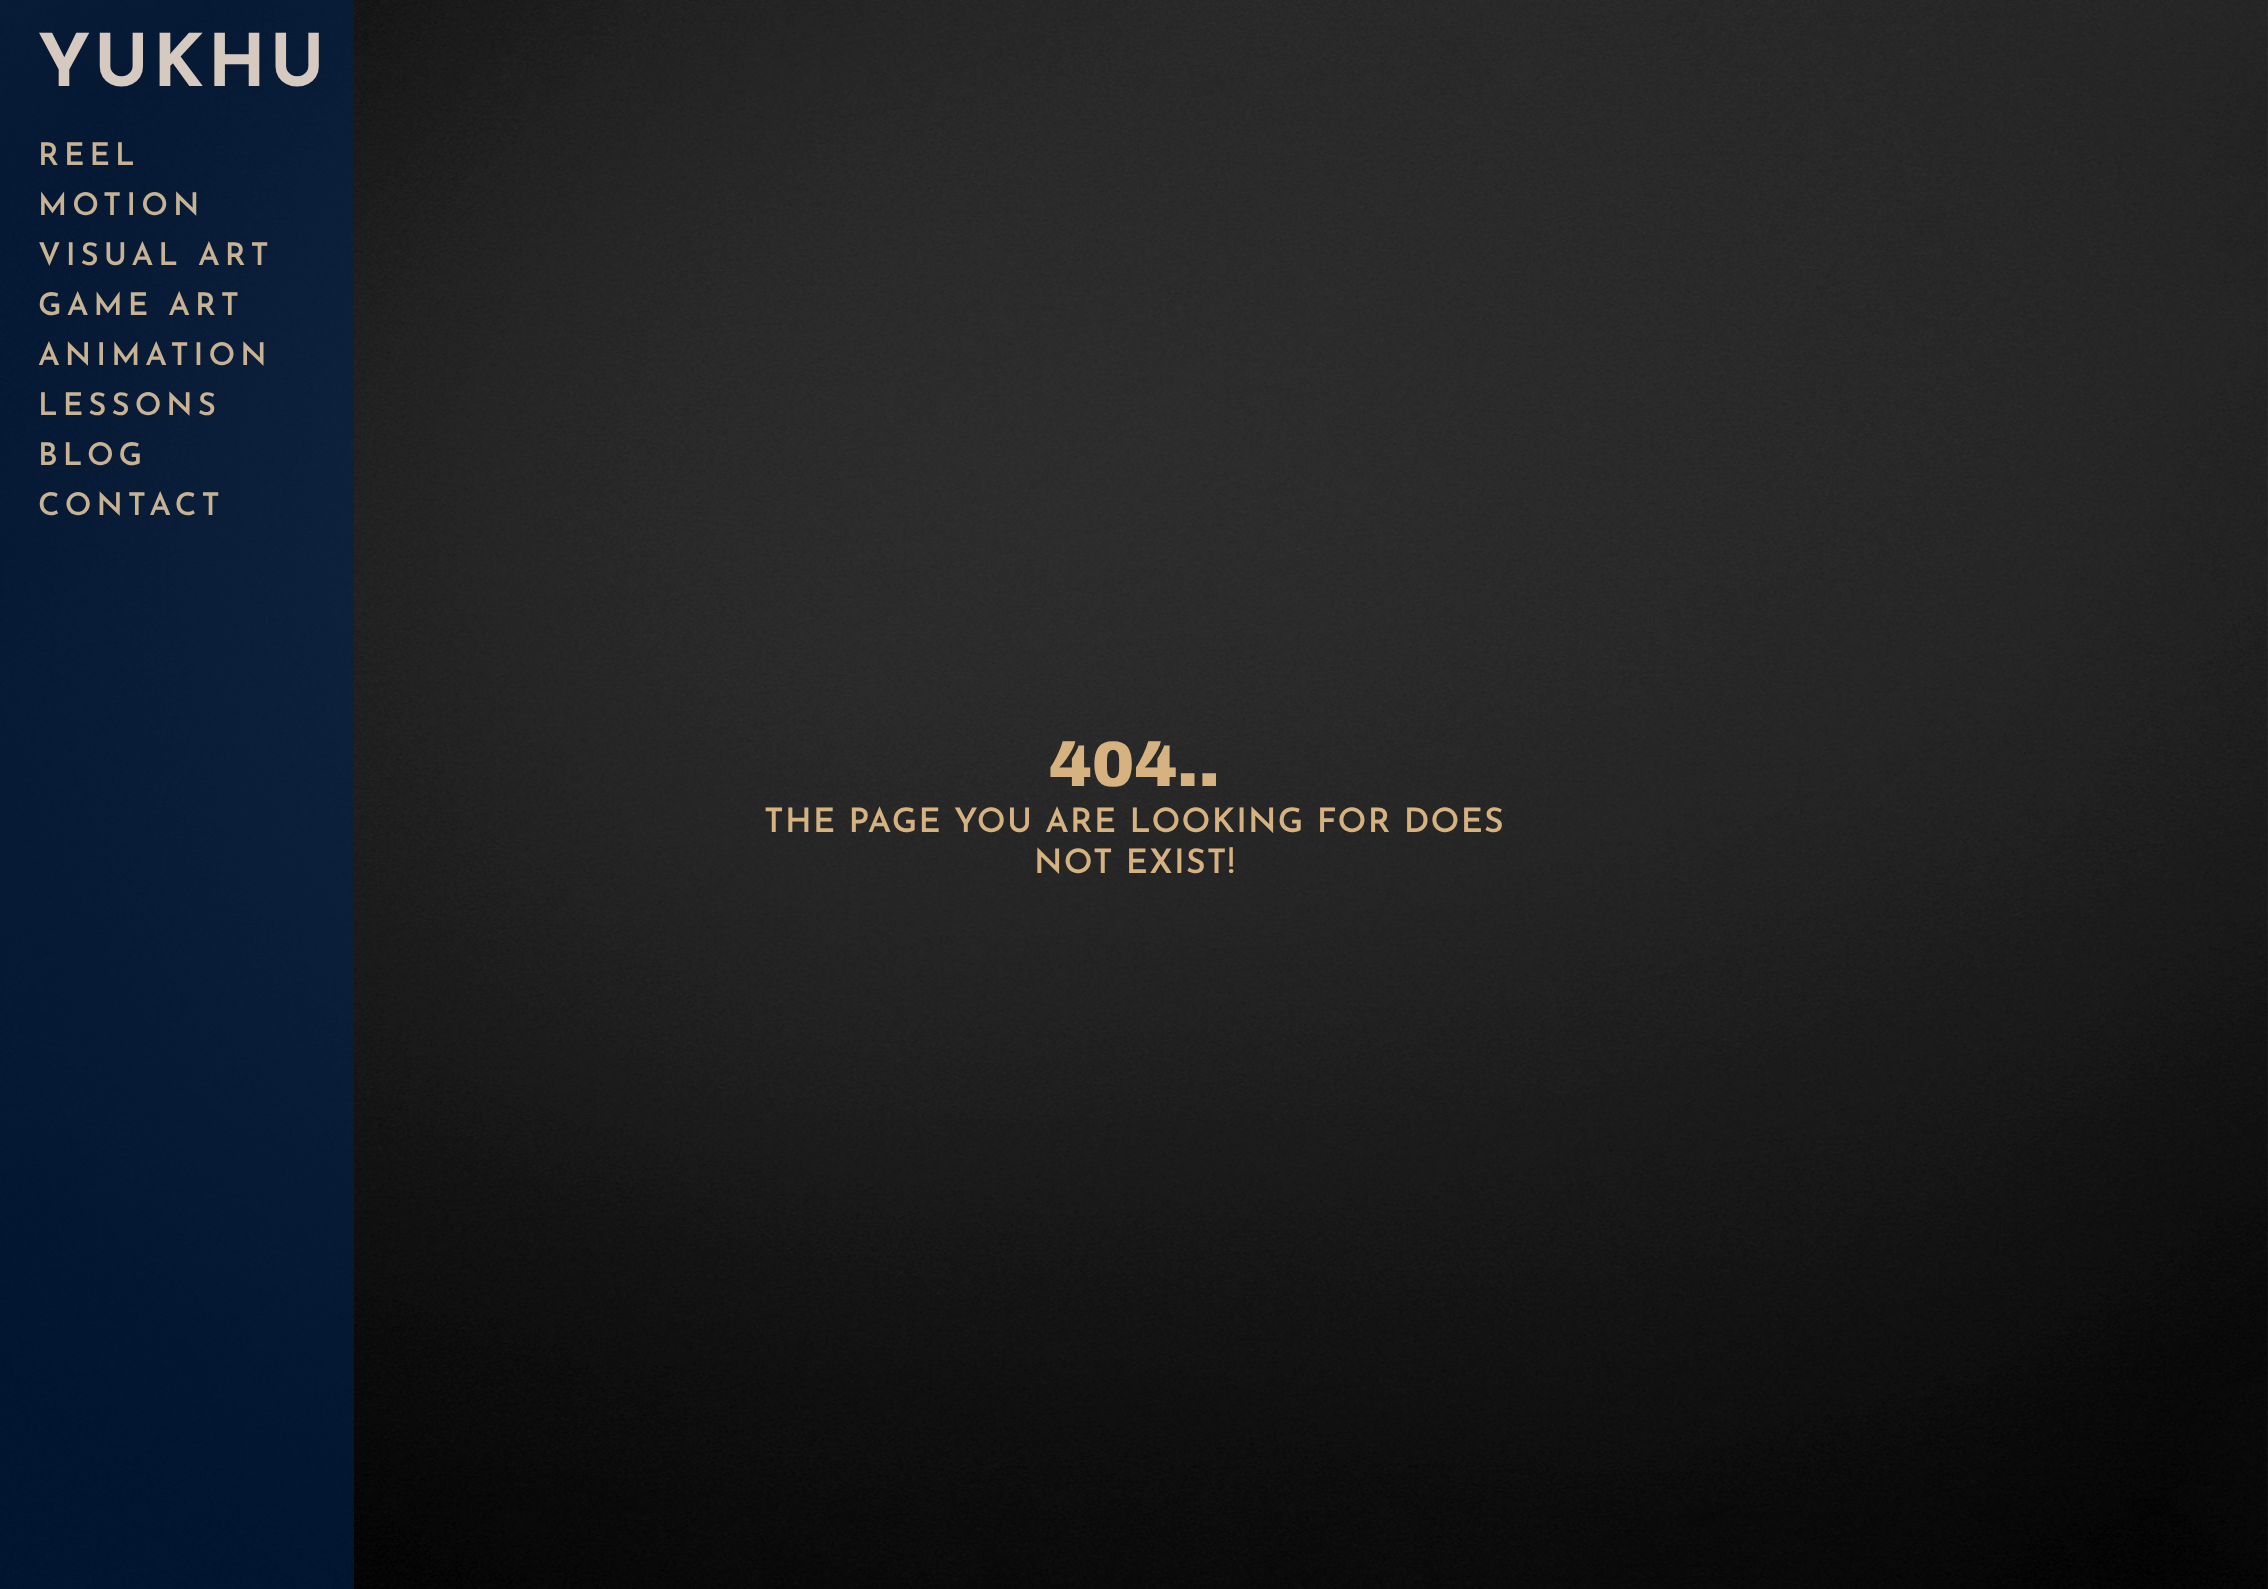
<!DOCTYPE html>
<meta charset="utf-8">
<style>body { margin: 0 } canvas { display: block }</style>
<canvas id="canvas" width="2268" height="1589"></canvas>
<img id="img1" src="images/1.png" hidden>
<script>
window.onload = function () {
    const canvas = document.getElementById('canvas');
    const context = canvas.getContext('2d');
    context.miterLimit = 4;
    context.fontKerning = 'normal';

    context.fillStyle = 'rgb(255, 255, 255)';
    context.fillRect(0, 0, 2268, 1589);
    context.drawImage(document.getElementById('img1'), 0, 0, 2268, 1589);
    context.fillStyle = 'rgba(0, 32, 79, 0.6)';
    context.fillRect(0, 0, 354, 1589);
    context.letterSpacing = '3.75px';
    context.font = 'bold 72.5px Josefin Sans';
    context.fillStyle = 'rgb(214, 201, 191)';
    context.fillText('YUKHU', 38, 86);
    context.letterSpacing = '5px';
    context.font = '600 31.25px Josefin Sans';
    context.fillStyle = 'rgb(199, 178, 147)';
    context.fillText('REEL', 38, 165);
    context.fillText('MOTION', 38, 215);
    context.fillText('VISUAL ART', 38, 265);
    context.fillText('GAME ART', 38, 315);
    context.fillText('ANIMATION', 38, 365);
    context.fillText('LESSONS', 38, 415);
    context.fillText('BLOG', 38, 465);
    context.fillText('CONTACT', 38, 515);
    context.letterSpacing = '0px';
    context.font = '900 64px Archivo Black';
    context.fillStyle = 'rgb(214, 178, 128)';
    context.fillText('404..', 1049, 786);
    context.letterSpacing = '1.25px';
    context.font = '600 33.75px Josefin Sans';
    context.fillText('THE PAGE YOU ARE LOOKING FOR DOES', 764, 832);
    context.fillText('NOT EXIST!', 1034, 873);
};
</script>
